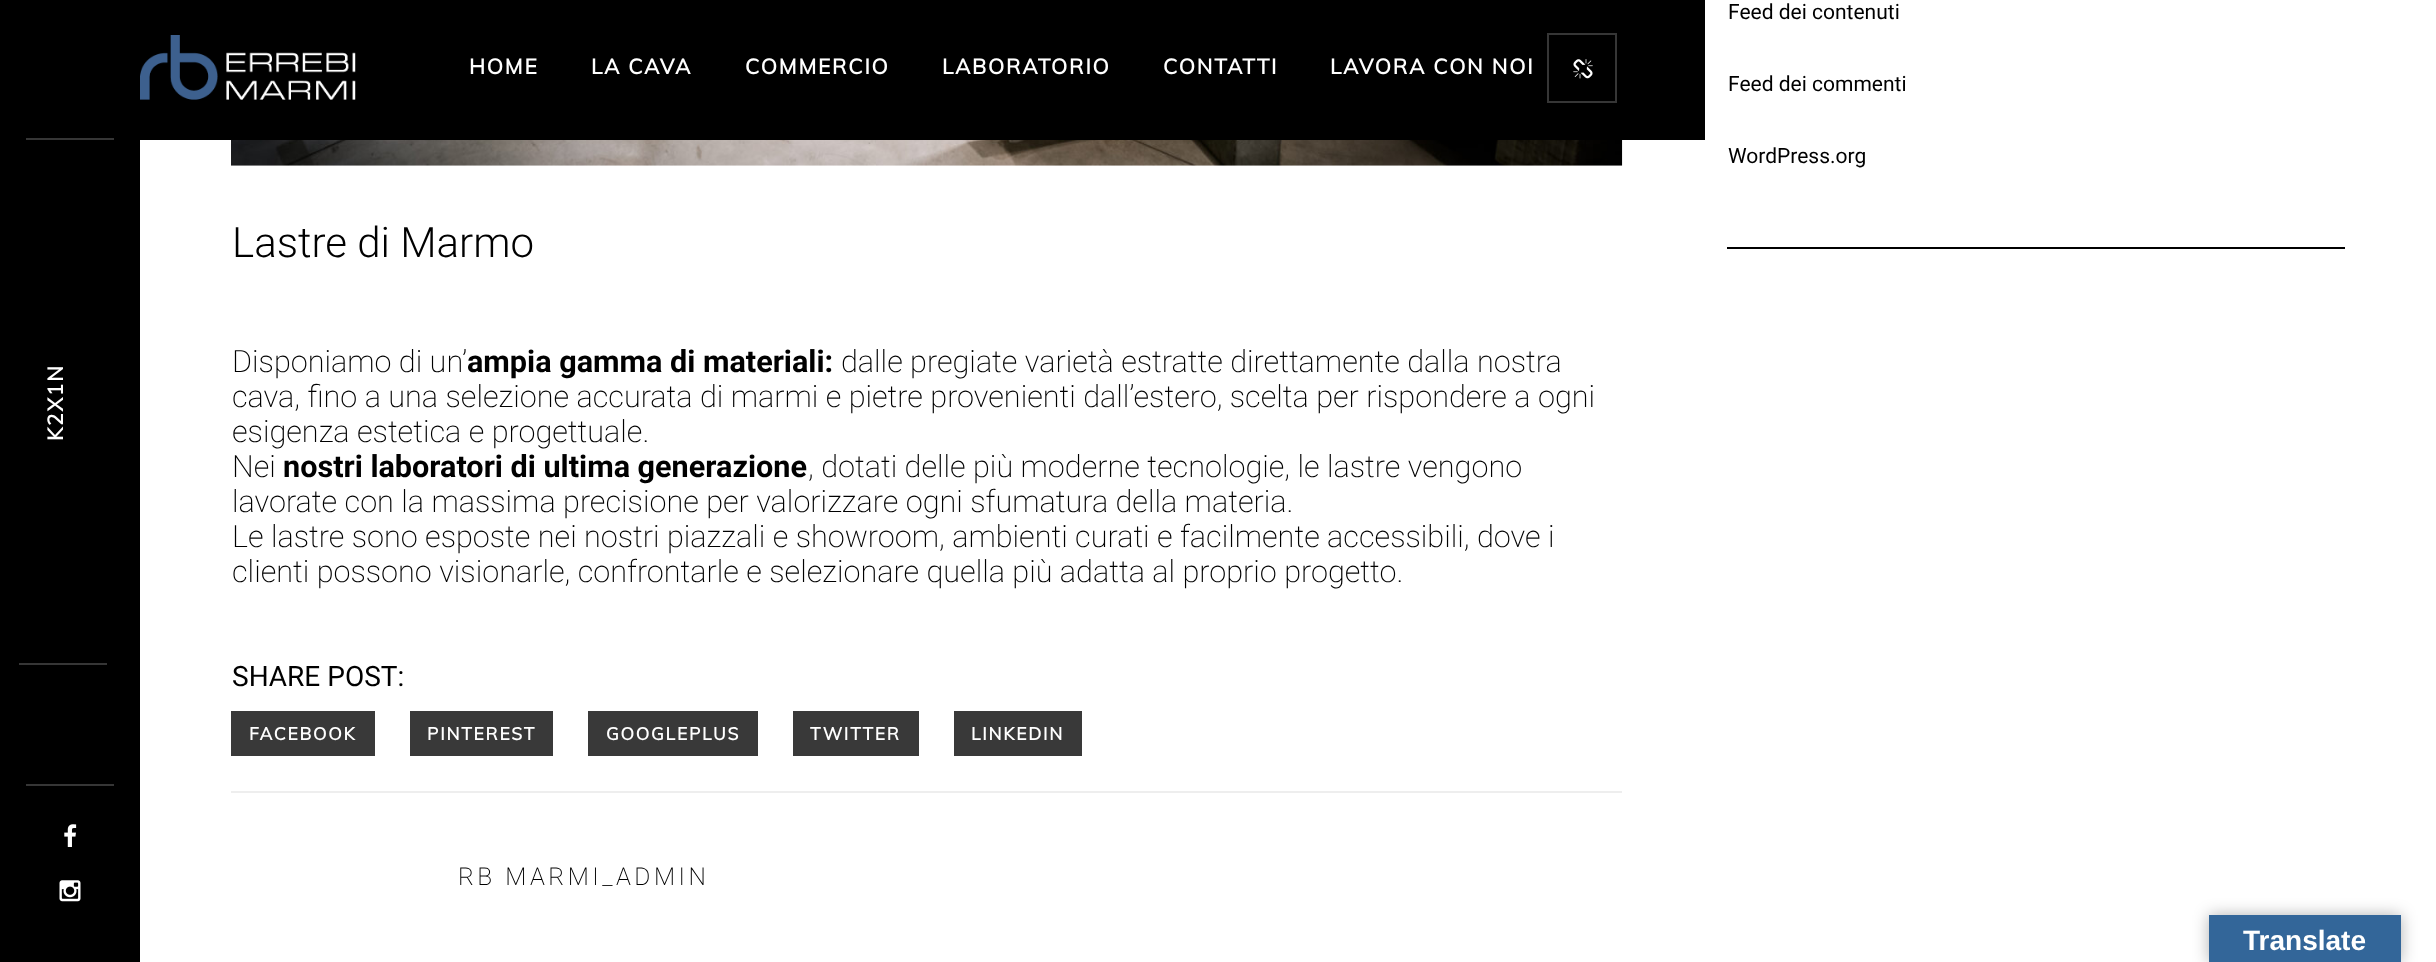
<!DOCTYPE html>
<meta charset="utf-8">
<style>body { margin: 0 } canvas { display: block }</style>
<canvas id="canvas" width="2436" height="962"></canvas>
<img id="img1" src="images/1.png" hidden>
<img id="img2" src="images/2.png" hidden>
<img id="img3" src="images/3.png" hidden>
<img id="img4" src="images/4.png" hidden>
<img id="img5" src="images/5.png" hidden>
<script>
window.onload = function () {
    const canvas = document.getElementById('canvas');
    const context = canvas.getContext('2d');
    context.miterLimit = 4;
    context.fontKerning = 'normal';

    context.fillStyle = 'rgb(255, 255, 255)';
    context.fillRect(0, 0, 2436, 962);
    context.fillStyle = 'rgb(0, 0, 0)';
    context.fillRect(1727, 247, 618, 2);
    context.fillStyle = 'rgb(238, 238, 238)';
    context.fillRect(231, 791, 1391, 2);
    context.drawImage(document.getElementById('img1'), 231, 140, 1392, 26);
    context.fillStyle = 'rgb(57, 57, 57)';
    context.fillRect(231, 711, 144, 45);
    context.fillRect(410, 711, 143, 45);
    context.fillRect(588, 711, 170, 45);
    context.fillRect(793, 711, 126, 45);
    context.fillRect(954, 711, 128, 45);
    context.fillStyle = 'rgb(0, 0, 0)';
    context.fillRect(0, 0, 1705, 140);
    context.drawImage(document.getElementById('img2'), 140, 35, 216, 65);
    context.strokeStyle = 'rgb(54, 54, 54)';
    context.lineWidth = 2;
    context.strokeRect(1548, 34, 68, 68);
    context.drawImage(document.getElementById('img3'), 1573, 59, 20, 20);
    context.fillStyle = 'rgb(54, 54, 54)';
    context.fillRect(26, 138, 88, 2);
    context.fillStyle = 'rgb(0, 0, 0)';
    context.fillRect(0, 140, 140, 822);
    context.fillStyle = 'rgb(54, 54, 54)';
    context.fillRect(19, 663, 88, 2);
    context.fillRect(26, 784, 88, 2);
    context.drawImage(document.getElementById('img4'), 64, 824, 13, 23);
    context.drawImage(document.getElementById('img5'), 59, 880, 22, 22);
    context.fillStyle = 'rgba(0, 0, 0, 0.3)';
    context.filter = 'blur(8px)';
    context.beginPath();
    context.rect(2209, 915, 192, 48);
    context.fill();
    context.filter = 'none';
    context.fillStyle = 'rgb(51, 102, 153)';
    context.fillRect(2209, 915, 192, 47);
    context.font = '21px Roboto';
    context.fillStyle = 'rgb(0, 0, 0)';
    context.fillText('Feed dei contenuti', 1728, 19);
    context.fillText('Feed dei commenti', 1728, 91);
    context.fillText('WordPress.org', 1728, 163);
    context.font = '300 42px Roboto';
    context.fillText('Lastre di Marmo', 232, 257);
    context.font = '200 30.6px Roboto';
    context.fillText('Disponiamo di un’', 232, 372);
    context.font = 'bold 30.6px Roboto';
    context.fillText('ampia gamma di materiali:', 467, 372);
    context.font = '200 30.6px Roboto';
    context.fillText('dalle pregiate varietà estratte direttamente dalla nostra', 841, 372);
    context.fillText('cava, fino a una selezione accurata di marmi e pietre provenienti dall’estero, scelta per rispondere a ogni', 232, 407);
    context.fillText('esigenza estetica e progettuale.', 232, 442);
    context.fillText('Nei', 232, 477);
    context.font = 'bold 30.6px Roboto';
    context.fillText('nostri laboratori di ultima generazione', 283, 477);
    context.font = '200 30.6px Roboto';
    context.fillText(', dotati delle più moderne tecnologie, le lastre vengono', 808, 477);
    context.fillText('lavorate con la massima precisione per valorizzare ogni sfumatura della materia.', 232, 512);
    context.fillText('Le lastre sono esposte nei nostri piazzali e showroom, ambienti curati e facilmente accessibili, dove i', 232, 547);
    context.fillText('clienti possono visionarle, confrontarle e selezionare quella più adatta al proprio progetto.', 232, 582);
    context.font = '28px Roboto';
    context.fillText('SHARE POST:', 232, 686);
    context.letterSpacing = '1.75px';
    context.font = 'bold 17.5px Muli';
    context.fillStyle = 'rgb(255, 255, 255)';
    context.fillText('FACEBOOK', 249, 740);
    context.fillText('PINTEREST', 427, 740);
    context.fillText('GOOGLEPLUS', 606, 740);
    context.fillText('TWITTER', 810, 740);
    context.fillText('LINKEDIN', 971, 740);
    context.letterSpacing = '3.5px';
    context.font = '200 24.5px Roboto';
    context.fillStyle = 'rgb(0, 0, 0)';
    context.fillText('RB MARMI_ADMIN', 458, 885);
    context.letterSpacing = '1.75px';
    context.font = 'bold 21px Muli';
    context.fillStyle = 'rgb(255, 255, 255)';
    context.fillText('HOME', 469, 74);
    context.fillText('LA CAVA', 591, 74);
    context.fillText('COMMERCIO', 745, 74);
    context.fillText('LABORATORIO', 942, 74);
    context.fillText('CONTATTI', 1163, 74);
    context.fillText('LAVORA CON NOI', 1330, 74);
    context.save();
    context.translate(63, 441);
    context.rotate(-90 * Math.PI / 180);
    context.fillText('K2X1N', 0, 0);
    context.restore();
    context.letterSpacing = '0px';
    context.font = 'bold 28px Liberation Sans';
    context.fillText('Translate', 2243, 950);
};
</script>
